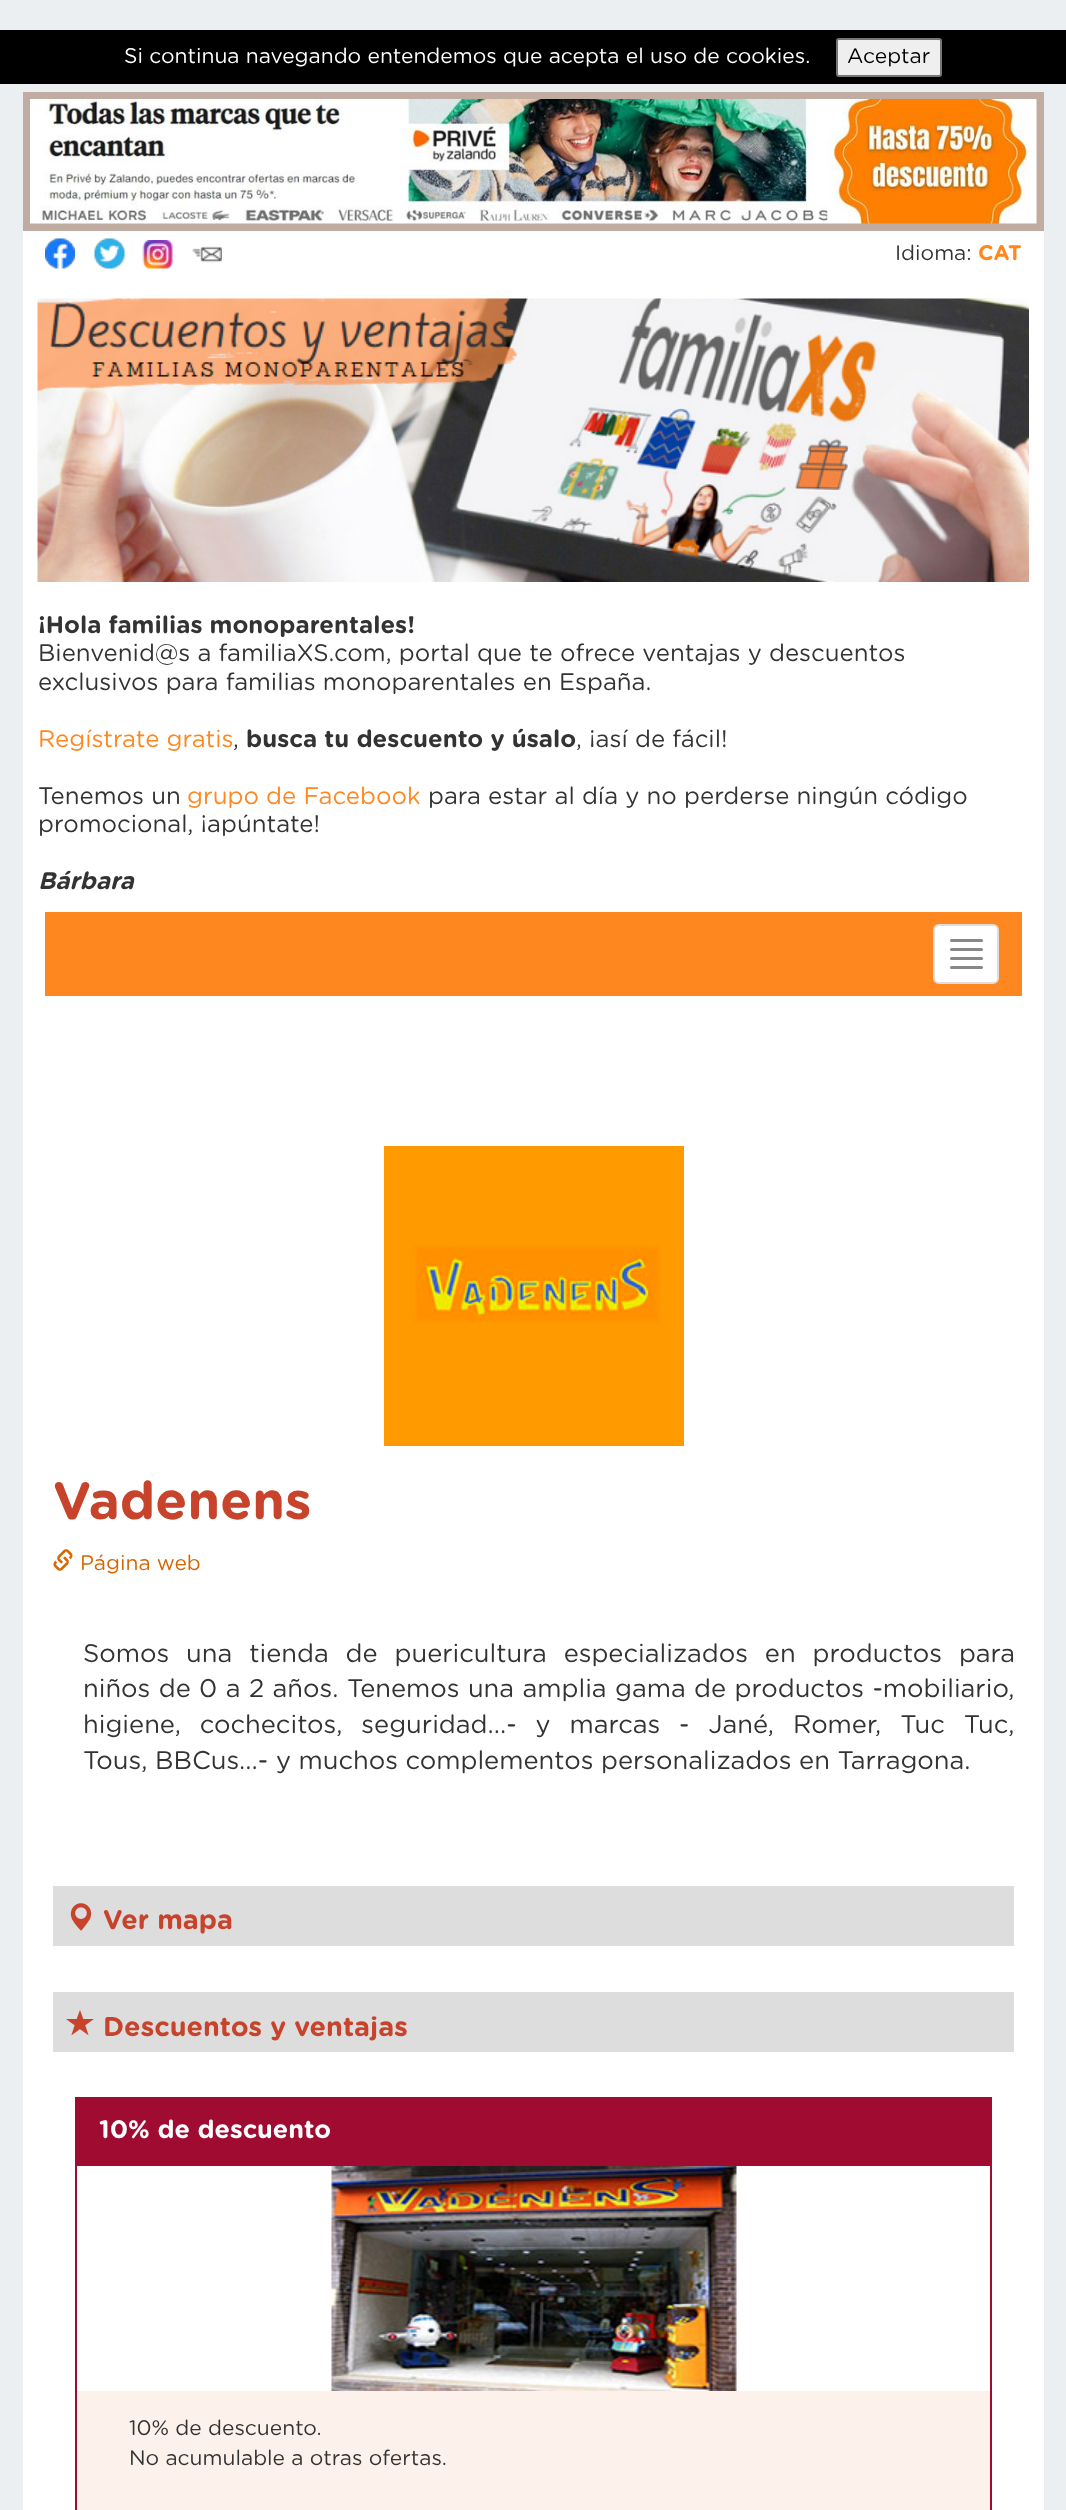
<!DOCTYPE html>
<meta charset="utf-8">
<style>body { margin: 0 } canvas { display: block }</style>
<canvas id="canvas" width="1066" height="2510"></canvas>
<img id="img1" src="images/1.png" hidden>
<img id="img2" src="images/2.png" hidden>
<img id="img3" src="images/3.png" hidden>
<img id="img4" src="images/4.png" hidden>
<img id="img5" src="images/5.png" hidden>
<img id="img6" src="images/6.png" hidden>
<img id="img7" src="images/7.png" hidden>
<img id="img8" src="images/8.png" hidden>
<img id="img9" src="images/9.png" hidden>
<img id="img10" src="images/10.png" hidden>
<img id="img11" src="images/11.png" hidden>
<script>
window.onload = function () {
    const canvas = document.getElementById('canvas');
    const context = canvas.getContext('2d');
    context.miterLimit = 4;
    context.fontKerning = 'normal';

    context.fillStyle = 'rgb(235, 239, 242)';
    context.fillRect(0, 0, 1066, 2510);
    context.fillStyle = 'rgb(0, 0, 0)';
    context.fillRect(0, 30, 1066, 54);
    context.fillStyle = 'rgb(239, 239, 239)';
    context.beginPath();
    context.roundRect(837, 39, 104, 37, 2);
    context.fill();
    context.strokeStyle = 'rgb(118, 118, 118)';
    context.lineWidth = 2;
    context.stroke();
    context.fillStyle = 'rgb(255, 255, 255)';
    context.fillRect(23, 231, 1021, 2279);
    context.fillStyle = 'rgb(192, 172, 161)';
    context.fillRect(23, 92, 1021, 139);
    context.drawImage(document.getElementById('img1'), 30, 99, 1007, 125);
    context.drawImage(document.getElementById('img2'), 45, 238, 30, 31);
    context.drawImage(document.getElementById('img3'), 94, 238, 31, 31);
    context.drawImage(document.getElementById('img4'), 142, 240, 31, 29);
    context.drawImage(document.getElementById('img5'), 192, 246, 30, 17);
    context.drawImage(document.getElementById('img6'), 37, 298, 992, 284);
    context.fillStyle = 'rgb(254, 135, 31)';
    context.fillRect(45, 912, 977, 84);
    context.fillStyle = 'rgb(255, 255, 255)';
    context.beginPath();
    context.roundRect(934, 925, 64, 58, 5);
    context.fill();
    context.strokeStyle = 'rgb(221, 221, 221)';
    context.stroke();
    context.fillStyle = 'rgb(136, 136, 136)';
    context.beginPath();
    context.roundRect(950, 939, 33, 3, 1.5);
    context.fill();
    context.beginPath();
    context.roundRect(950, 948, 33, 3, 1.5);
    context.fill();
    context.beginPath();
    context.roundRect(950, 957, 33, 3, 1.5);
    context.fill();
    context.beginPath();
    context.roundRect(950, 966, 33, 3, 1.5);
    context.fill();
    context.drawImage(document.getElementById('img7'), 384, 1146, 300, 300);
    context.drawImage(document.getElementById('img8'), 53, 1549, 20, 22);
    context.fillStyle = 'rgb(221, 221, 221)';
    context.fillRect(53, 1886, 961, 60);
    context.drawImage(document.getElementById('img9'), 70, 1903, 22, 28);
    context.fillRect(53, 1992, 961, 60);
    context.drawImage(document.getElementById('img10'), 66, 2010, 28, 26);
    context.strokeStyle = 'rgb(160, 11, 50)';
    context.strokeRect(76, 2098, 915, 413);
    context.fillStyle = 'rgb(160, 11, 50)';
    context.fillRect(77, 2099, 913, 67);
    context.drawImage(document.getElementById('img11'), 331, 2166, 406, 225);
    context.fillStyle = 'rgb(253, 241, 235)';
    context.fillRect(77, 2391, 913, 119);
    context.font = '21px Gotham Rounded';
    context.fillStyle = 'rgb(255, 255, 255)';
    context.fillText('Si continua navegando entendemos que acepta el uso de cookies.', 124, 63);
    context.fillStyle = 'rgb(0, 0, 0)';
    context.fillText('Aceptar', 847, 63);
    context.fillStyle = 'rgb(51, 51, 51)';
    context.fillText('Idioma:', 895, 260);
    context.font = 'bold 21px Gotham Rounded';
    context.fillStyle = 'rgb(254, 135, 31)';
    context.fillText('CAT', 978, 260);
    context.font = 'bold 24px Gotham Rounded';
    context.fillStyle = 'rgb(51, 51, 51)';
    context.fillText('¡Hola familias monoparentales!', 38, 633);
    context.font = '24px Gotham Rounded';
    context.fillText('Bienvenid@s a familiaXS.com, portal que te ofrece ventajas y descuentos', 38, 661);
    context.fillText('exclusivos para familias monoparentales en España.', 38, 690);
    context.fillStyle = 'rgb(254, 135, 31)';
    context.fillText('Regístrate gratis', 38, 747);
    context.fillStyle = 'rgb(51, 51, 51)';
    context.fillText(',', 233, 747);
    context.font = 'bold 24px Gotham Rounded';
    context.fillText('busca tu descuento y úsalo', 246, 747);
    context.font = '24px Gotham Rounded';
    context.fillText(', ¡así de fácil!', 576, 747);
    context.fillText('Tenemos un', 38, 804);
    context.fillStyle = 'rgb(254, 135, 31)';
    context.fillText('grupo de Facebook', 187, 804);
    context.fillStyle = 'rgb(51, 51, 51)';
    context.fillText('para estar al día y no perderse ningún código', 428, 804);
    context.fillText('promocional, ¡apúntate!', 38, 832);
    context.font = 'italic bold 24px Gotham Rounded';
    context.fillText('Bárbara', 38, 889);
    context.font = 'bold 52.5px Gotham Rounded';
    context.fillStyle = 'rgb(199, 67, 43)';
    context.fillText('Vadenens', 53, 1519);
    context.font = '21px Gotham Rounded';
    context.fillStyle = 'rgb(215, 101, 2)';
    context.fillText('Página web', 80, 1570);
    context.wordSpacing = '9.25px';
    context.font = '25.5px Gotham Rounded';
    context.fillStyle = 'rgb(51, 51, 51)';
    context.fillText('Somos una tienda de puericultura especializados en productos para', 83, 1662);
    context.wordSpacing = '0.75px';
    context.fillText('niños de 0 a 2 años. Tenemos una amplia gama de productos -mobiliario,', 83, 1697);
    context.wordSpacing = '11.25px';
    context.fillText('higiene, cochecitos, seguridad...- y marcas - Jané, Romer, Tuc Tuc,', 83, 1733);
    context.wordSpacing = '0px';
    context.fillText('Tous, BBCus...- y muchos complementos personalizados en Tarragona.', 83, 1769);
    context.font = 'bold 27px Gotham Rounded';
    context.fillStyle = 'rgb(199, 67, 43)';
    context.fillText('Ver mapa', 103, 1929);
    context.fillText('Descuentos y ventajas', 103, 2036);
    context.font = 'bold 25.25px Gotham Rounded';
    context.fillStyle = 'rgb(255, 255, 255)';
    context.fillText('10% de descuento', 99, 2138);
    context.font = '21px Gotham Rounded';
    context.fillStyle = 'rgb(51, 51, 51)';
    context.fillText('10% de descuento.', 129, 2435);
    context.fillText('No acumulable a otras ofertas.', 129, 2465);
};
</script>
